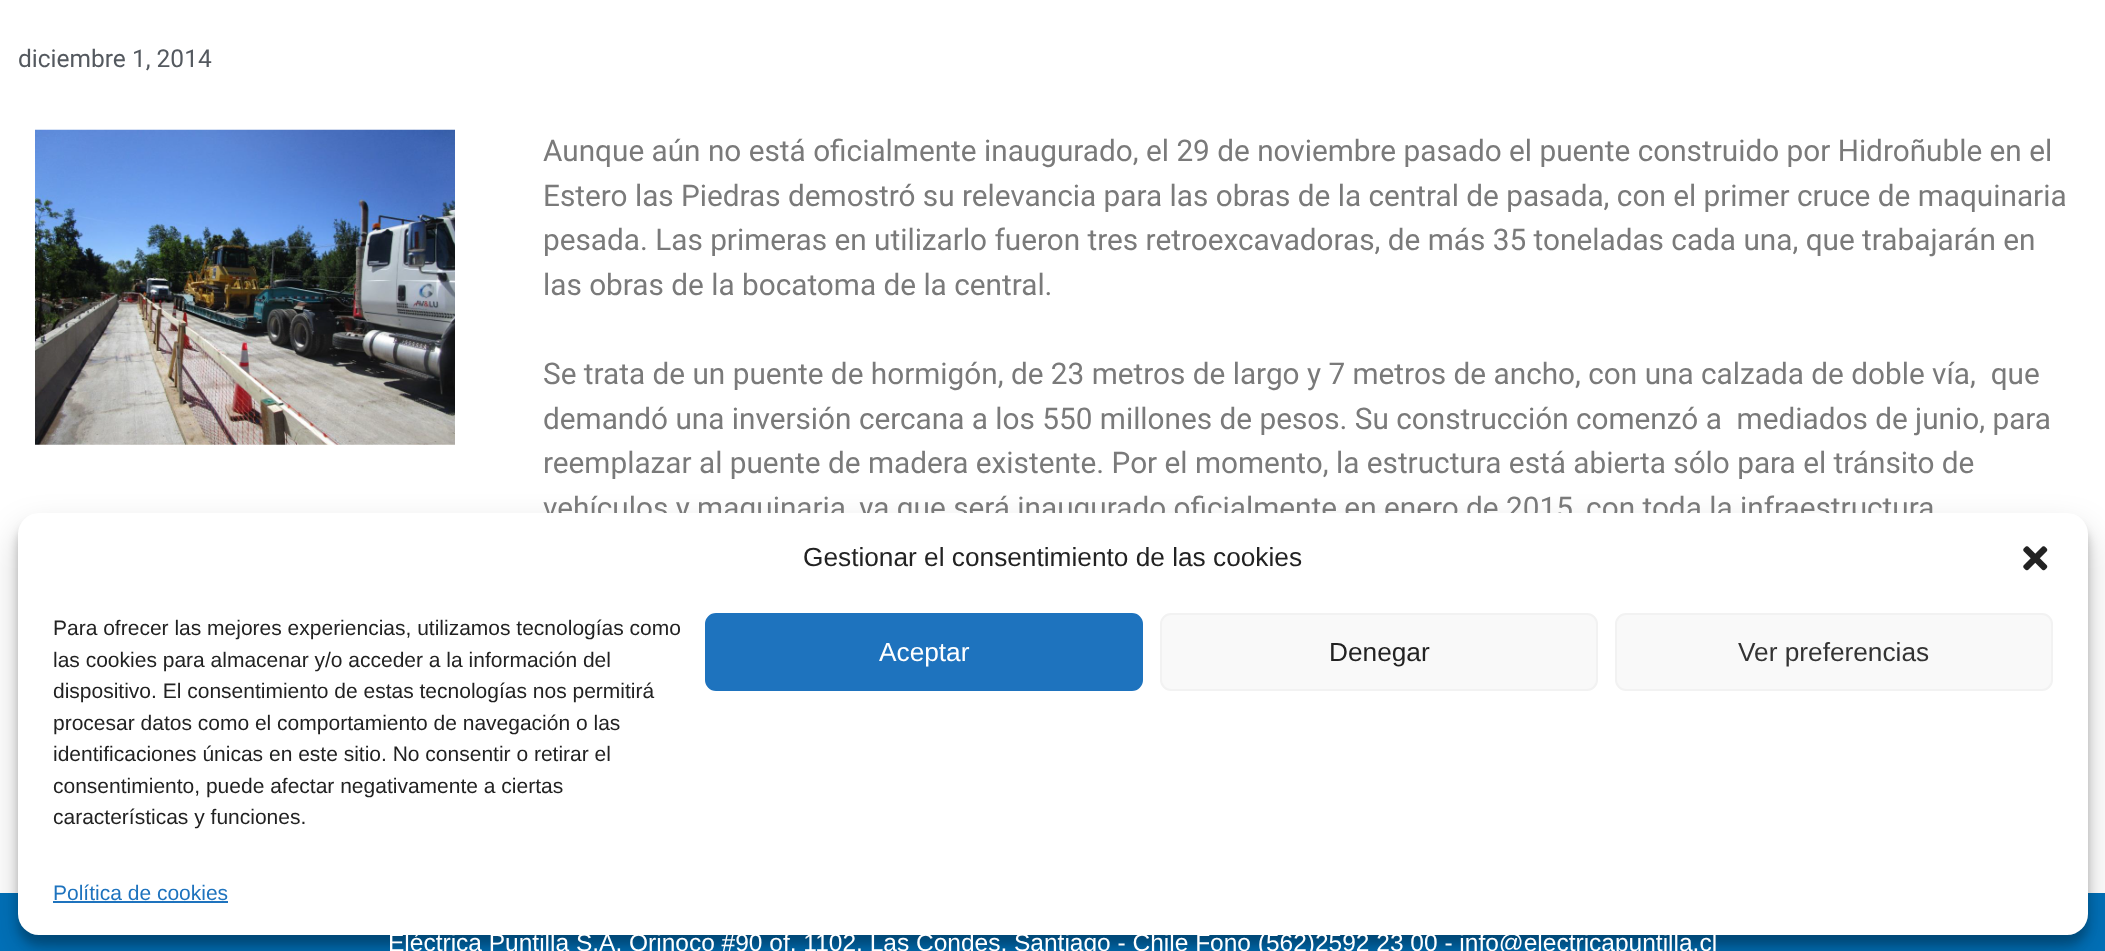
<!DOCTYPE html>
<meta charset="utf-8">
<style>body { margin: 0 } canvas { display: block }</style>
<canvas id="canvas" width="2105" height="951"></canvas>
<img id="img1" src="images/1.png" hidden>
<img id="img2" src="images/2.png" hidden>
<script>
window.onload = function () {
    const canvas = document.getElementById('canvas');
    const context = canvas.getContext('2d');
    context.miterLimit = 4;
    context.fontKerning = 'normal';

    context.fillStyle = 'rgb(255, 255, 255)';
    context.fillRect(0, 0, 2105, 951);
    context.drawImage(document.getElementById('img1'), 35, 129, 420, 316);
    context.fillStyle = 'rgb(2, 113, 185)';
    context.fillRect(0, 893, 2105, 58);
    context.fillStyle = 'rgba(0, 0, 0, 0.23)';
    context.filter = 'blur(5px)';
    context.beginPath();
    context.roundRect(18, 523, 2070, 422, 21);
    context.fill();
    context.filter = 'none';
    context.fillStyle = 'rgba(0, 0, 0, 0.19)';
    context.filter = 'blur(17.5px)';
    context.beginPath();
    context.roundRect(18, 530, 2070, 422, 21);
    context.fill();
    context.filter = 'none';
    context.font = '24.5px Roboto';
    context.fillStyle = 'rgb(84, 89, 95)';
    context.fillText('diciembre 1, 2014', 18, 67);
    context.font = '29.75px Roboto';
    context.fillStyle = 'rgb(122, 122, 122)';
    context.fillText('Aunque aún no está oficialmente inaugurado, el 29 de noviembre pasado el puente construido por Hidroñuble en el', 543, 161);
    context.fillText('Estero las Piedras demostró su relevancia para las obras de la central de pasada, con el primer cruce de maquinaria', 543, 206);
    context.fillText('pesada. Las primeras en utilizarlo fueron tres retroexcavadoras, de más 35 toneladas cada una, que trabajarán en', 543, 250);
    context.fillText('las obras de la bocatoma de la central.', 543, 295);
    context.fillText('Se trata de un puente de hormigón, de 23 metros de largo y 7 metros de ancho, con una calzada de doble vía,  que', 543, 384);
    context.fillText('demandó una inversión cercana a los 550 millones de pesos. Su construcción comenzó a  mediados de junio, para', 543, 429);
    context.fillText('reemplazar al puente de madera existente. Por el momento, la estructura está abierta sólo para el tránsito de', 543, 473);
    context.fillText('vehículos y maquinaria, ya que será inaugurado oficialmente en enero de 2015, con toda la infraestructura', 543, 518);
    context.fillStyle = 'rgb(255, 255, 255)';
    context.beginPath();
    context.roundRect(18, 513, 2070, 422, 21);
    context.fill();
    context.font = '26.25px Liberation Sans';
    context.fillStyle = 'rgb(34, 34, 34)';
    context.fillText('Gestionar el consentimiento de las cookies', 803, 566);
    context.drawImage(document.getElementById('img2'), 2023, 546, 25, 25);
    context.font = '21px Liberation Sans';
    context.fillText('Para ofrecer las mejores experiencias, utilizamos tecnologías como', 53, 635);
    context.fillText('las cookies para almacenar y/o acceder a la información del', 53, 667);
    context.fillText('dispositivo. El consentimiento de estas tecnologías nos permitirá', 53, 698);
    context.fillText('procesar datos como el comportamiento de navegación o las', 53, 730);
    context.fillText('identificaciones únicas en este sitio. No consentir o retirar el', 53, 761);
    context.fillText('consentimiento, puede afectar negativamente a ciertas', 53, 793);
    context.fillText('características y funciones.', 53, 824);
    context.fillStyle = 'rgb(30, 115, 190)';
    context.beginPath();
    context.roundRect(706, 614, 436, 76, 10);
    context.fill();
    context.strokeStyle = 'rgb(30, 115, 190)';
    context.lineWidth = 2;
    context.stroke();
    context.font = '26.25px Liberation Sans';
    context.fillStyle = 'rgb(255, 255, 255)';
    context.fillText('Aceptar', 879, 661);
    context.fillStyle = 'rgb(249, 249, 249)';
    context.beginPath();
    context.roundRect(1161, 614, 436, 76, 10);
    context.fill();
    context.strokeStyle = 'rgb(242, 242, 242)';
    context.stroke();
    context.fillStyle = 'rgb(34, 34, 34)';
    context.fillText('Denegar', 1329, 661);
    context.fillStyle = 'rgb(249, 249, 249)';
    context.beginPath();
    context.roundRect(1616, 614, 436, 76, 10);
    context.fill();
    context.stroke();
    context.fillStyle = 'rgb(51, 51, 51)';
    context.fillText('Ver preferencias', 1738, 661);
    context.font = '21px Liberation Sans';
    context.fillStyle = 'rgb(30, 115, 190)';
    context.fillText('Política de cookies', 53, 900);
    context.fillRect(53, 901, 175, 2);
    context.font = '24.5px Liberation Sans';
    context.fillStyle = 'rgb(255, 255, 255)';
    context.fillText('Eléctrica Puntilla S.A. Orinoco #90 of. 1102, Las Condes, Santiago - Chile Fono (562)2592 23 00 - info@electricapuntilla.cl', 388, 951);
};
</script>
